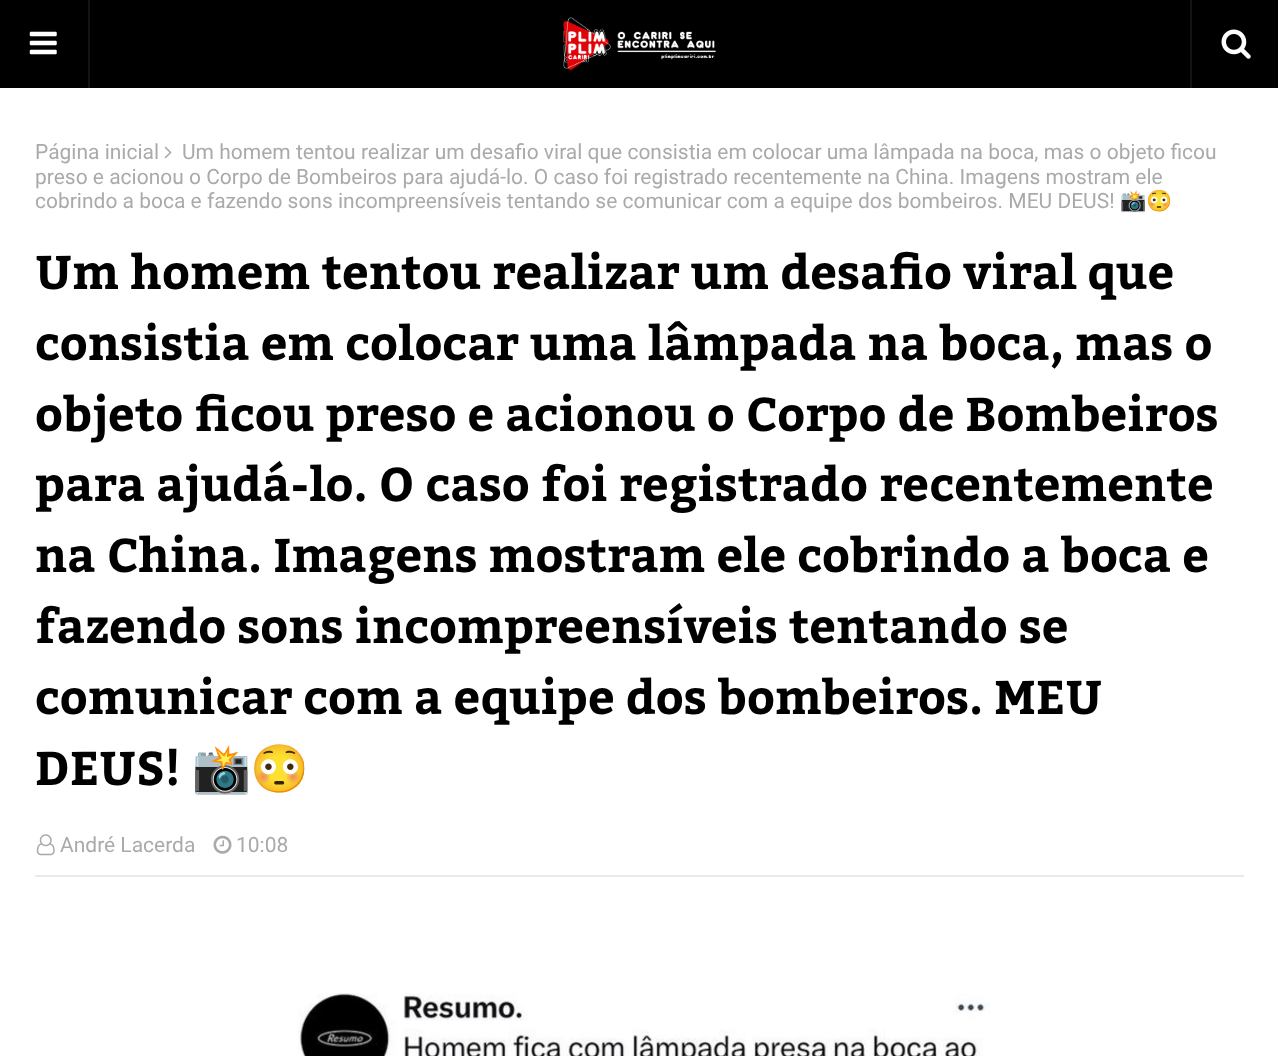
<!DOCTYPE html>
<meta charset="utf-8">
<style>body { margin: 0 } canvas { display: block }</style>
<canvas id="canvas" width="1278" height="1056"></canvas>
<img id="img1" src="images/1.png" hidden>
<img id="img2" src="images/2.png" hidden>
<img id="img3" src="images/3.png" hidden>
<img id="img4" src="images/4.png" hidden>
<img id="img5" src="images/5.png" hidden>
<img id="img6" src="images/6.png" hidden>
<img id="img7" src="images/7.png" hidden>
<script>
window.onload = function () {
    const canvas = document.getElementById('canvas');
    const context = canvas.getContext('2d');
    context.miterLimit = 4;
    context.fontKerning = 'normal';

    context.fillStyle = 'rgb(255, 255, 255)';
    context.fillRect(0, 0, 1278, 1056);
    context.fillStyle = 'rgb(0, 0, 0)';
    context.fillRect(0, 0, 1278, 88);
    context.fillStyle = 'rgb(20, 20, 20)';
    context.fillRect(88, 0, 2, 88);
    context.drawImage(document.getElementById('img1'), 29, 31, 28, 24);
    context.drawImage(document.getElementById('img2'), 563, 17, 153, 53);
    context.fillRect(1190, 0, 2, 88);
    context.drawImage(document.getElementById('img3'), 1221, 29, 30, 30);
    context.drawImage(document.getElementById('img4'), 164, 146, 8, 13);
    context.fillStyle = 'rgb(234, 234, 234)';
    context.fillRect(35, 875, 1209, 2);
    context.drawImage(document.getElementById('img5'), 36, 834, 19, 22);
    context.drawImage(document.getElementById('img6'), 213, 835, 19, 19);
    context.drawImage(document.getElementById('img7'), 298, 993, 693, 63);
    context.font = '21px Roboto';
    context.fillStyle = 'rgb(170, 170, 170)';
    context.fillText('Página inicial', 35, 159);
    context.fillText('Um homem tentou realizar um desafio viral que consistia em colocar uma lâmpada na boca, mas o objeto ficou', 182, 159);
    context.fillText('preso e acionou o Corpo de Bombeiros para ajudá-lo. O caso foi registrado recentemente na China. Imagens mostram ele', 35, 184);
    context.fillText('cobrindo a boca e fazendo sons incompreensíveis tentando se comunicar com a equipe dos bombeiros. MEU DEUS!', 35, 208);
    context.font = '21px Noto Color Emoji';
    context.fillText('📸😳', 1120, 208);
    context.font = 'bold 47.25px Kadwa';
    context.fillStyle = 'rgb(0, 0, 0)';
    context.fillText('Um homem tentou realizar um desafio viral que', 35, 289);
    context.fillText('consistia em colocar uma lâmpada na boca, mas o', 35, 360);
    context.fillText('objeto ficou preso e acionou o Corpo de Bombeiros', 35, 431);
    context.fillText('para ajudá-lo. O caso foi registrado recentemente', 35, 501);
    context.fillText('na China. Imagens mostram ele cobrindo a boca e', 35, 572);
    context.fillText('fazendo sons incompreensíveis tentando se', 35, 643);
    context.fillText('comunicar com a equipe dos bombeiros. MEU', 35, 714);
    context.fillText('DEUS!', 35, 785);
    context.font = 'bold 47.25px Noto Color Emoji';
    context.fillText('📸😳', 192, 785);
    context.font = '21px Roboto';
    context.fillStyle = 'rgb(170, 170, 170)';
    context.fillText('André Lacerda', 60, 852);
    context.fillText('10:08', 236, 852);
};
</script>
